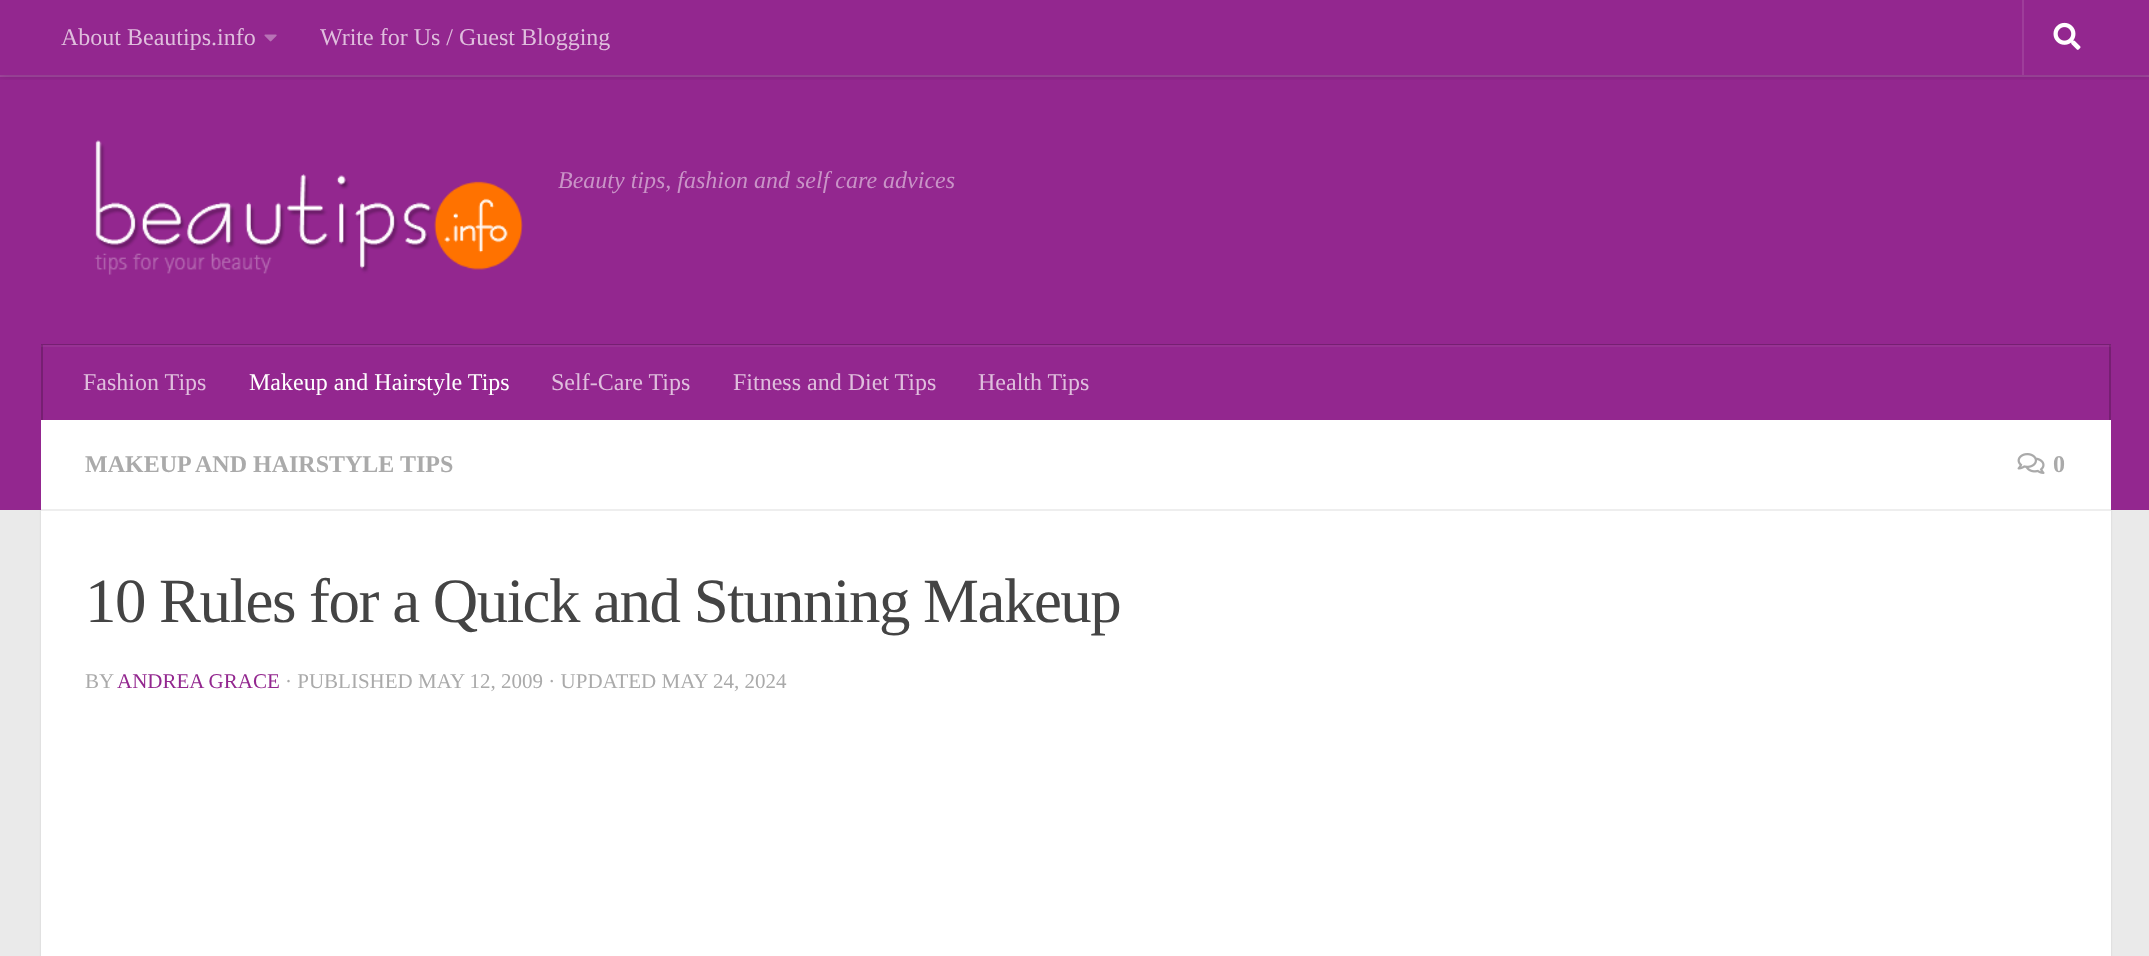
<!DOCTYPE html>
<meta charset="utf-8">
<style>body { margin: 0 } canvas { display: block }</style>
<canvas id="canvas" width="2149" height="956"></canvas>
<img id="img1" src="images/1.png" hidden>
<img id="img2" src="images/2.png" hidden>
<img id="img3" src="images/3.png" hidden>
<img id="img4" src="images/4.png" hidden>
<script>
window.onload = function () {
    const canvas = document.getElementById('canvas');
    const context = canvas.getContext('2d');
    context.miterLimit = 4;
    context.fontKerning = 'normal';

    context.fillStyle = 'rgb(234, 234, 234)';
    context.fillRect(0, 0, 2149, 956);
    context.fillStyle = 'rgba(0, 0, 0, 0.1)';
    context.filter = 'blur(1px)';
    context.beginPath();
    context.rect(41, 422, 2070, 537);
    context.fill();
    context.filter = 'none';
    context.fillStyle = 'rgb(147, 39, 143)';
    context.fillRect(0, 0, 2149, 510);
    context.fillStyle = 'rgb(163, 71, 160)';
    context.beginPath();
    context.moveTo(0, 75);
    context.lineTo(0, 77);
    context.lineTo(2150, 77);
    context.lineTo(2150, 2);
    context.lineTo(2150, 75);
    context.closePath();
    context.fill();
    context.save();
    context.beginPath();
    context.rect(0, 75, 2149, 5);
    context.clip();
    context.fillStyle = 'rgba(0, 0, 0, 0.2)';
    context.filter = 'blur(4px)';
    context.beginPath();
    context.rect(0, 0, 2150, 75);
    context.fill();
    context.filter = 'none';
    context.restore();
    context.drawImage(document.getElementById('img1'), 264, 34, 13, 8);
    context.fillStyle = 'rgb(158, 61, 154)';
    context.fillRect(2022, 0, 2, 75);
    context.drawImage(document.getElementById('img2'), 2053, 22, 28, 28);
    context.drawImage(document.getElementById('img3'), 94, 140, 429, 135);
    context.fillStyle = 'rgb(118, 31, 114)';
    context.beginPath();
    context.moveTo(41, 344);
    context.lineTo(41, 345);
    context.lineTo(2110, 345);
    context.lineTo(2110, 419);
    context.lineTo(2111, 419);
    context.lineTo(2111, 344);
    context.closePath();
    context.fill();
    context.fillRect(2109, 345, 2, 75);
    context.fillRect(41, 345, 2, 75);
    context.fillStyle = 'rgba(255, 255, 255, 0.05)';
    context.fillRect(41, 345, 2070, 2);
    context.fillStyle = 'rgb(255, 255, 255)';
    context.fillRect(41, 420, 2070, 536);
    context.fillStyle = 'rgb(238, 238, 238)';
    context.fillRect(41, 509, 2070, 2);
    context.drawImage(document.getElementById('img4'), 2017, 453, 28, 21);
    context.font = '24px Liberation Serif';
    context.fillStyle = 'rgb(223, 190, 221)';
    context.fillText('About Beautips.info', 61, 45);
    context.fillText('Write for Us / Guest Blogging', 320, 45);
    context.font = 'italic 24px Liberation Serif';
    context.fillStyle = 'rgb(201, 147, 199)';
    context.fillText('Beauty tips, fashion and self care advices', 558, 188);
    context.font = '24px Liberation Serif';
    context.fillStyle = 'rgb(223, 190, 221)';
    context.fillText('Fashion Tips', 83, 390);
    context.fillStyle = 'rgb(255, 255, 255)';
    context.fillText('Makeup and Hairstyle Tips', 249, 390);
    context.fillStyle = 'rgb(223, 190, 221)';
    context.fillText('Self-Care Tips', 551, 390);
    context.fillText('Fitness and Diet Tips', 733, 390);
    context.fillText('Health Tips', 978, 390);
    context.font = 'bold 24px Liberation Serif';
    context.fillStyle = 'rgb(170, 170, 170)';
    context.fillText('MAKEUP AND HAIRSTYLE TIPS', 85, 472);
    context.fillText('0', 2053, 472);
    context.letterSpacing = '-1.5px';
    context.font = '62.9px Liberation Serif';
    context.fillStyle = 'rgb(68, 68, 68)';
    context.fillText('10 Rules for a Quick and Stunning Makeup', 85, 622);
    context.letterSpacing = '0px';
    context.font = '21px Liberation Serif';
    context.fillStyle = 'rgb(170, 170, 170)';
    context.fillText('BY', 85, 688);
    context.fillStyle = 'rgb(147, 39, 143)';
    context.fillText('ANDREA GRACE', 117, 688);
    context.fillStyle = 'rgb(170, 170, 170)';
    context.fillText('· PUBLISHED MAY 12, 2009 · UPDATED MAY 24, 2024', 285, 688);
};
</script>
